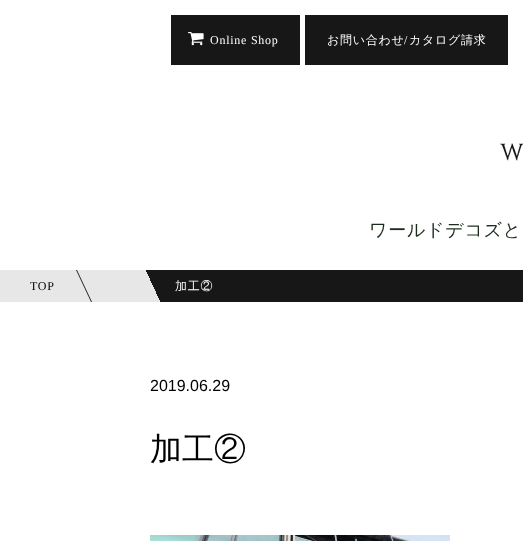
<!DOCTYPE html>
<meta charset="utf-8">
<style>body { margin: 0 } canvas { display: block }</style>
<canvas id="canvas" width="523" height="541"></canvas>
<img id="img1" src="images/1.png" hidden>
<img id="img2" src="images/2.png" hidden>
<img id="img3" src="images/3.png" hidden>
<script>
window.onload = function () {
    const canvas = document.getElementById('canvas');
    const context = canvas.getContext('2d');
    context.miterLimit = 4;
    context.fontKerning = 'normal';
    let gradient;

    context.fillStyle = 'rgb(255, 255, 255)';
    context.fillRect(0, 0, 523, 541);
    context.fillStyle = 'rgb(23, 23, 23)';
    context.fillRect(171, 15, 129, 50);
    context.drawImage(document.getElementById('img1'), 188, 32, 16, 14);
    context.fillRect(305, 15, 203, 50);
    context.drawImage(document.getElementById('img2'), 500, 143, 23, 18);
    context.fillRect(161, 270, 362, 32);
    context.fillStyle = 'rgb(231, 231, 231)';
    context.fillRect(0, 270, 145, 32);
    context.fillStyle = 'rgb(28, 45, 31)';
    context.beginPath();
    context.moveTo(76, 270);
    context.lineTo(77, 270);
    context.lineTo(92, 302);
    context.lineTo(91, 302);
    context.closePath();
    context.fill();
    gradient = context.createLinearGradient(166, 280, 140, 292);
    gradient.addColorStop(0.5, 'rgb(23, 23, 23)');
    gradient.addColorStop(0.5, 'rgb(231, 231, 231)');
    context.fillStyle = gradient;
    context.fillRect(145, 270, 16, 32);
    context.drawImage(document.getElementById('img3'), 150, 535, 300, 6);
    context.letterSpacing = '0.75px';
    context.font = '12px Liberation Serif';
    context.fillStyle = 'rgb(255, 255, 255)';
    context.fillText('Online Shop', 210, 44);
    context.font = '500 12px WenQuanYi Zen Hei';
    context.fillText('お問い合わせ カタログ請求', 327, 44);
    context.font = '12px Liberation Serif';
    context.fillText('/', 404, 44);
    context.font = '500 18px WenQuanYi Zen Hei';
    context.fillStyle = 'rgb(28, 45, 31)';
    context.fillText('ワールドデコズと', 369, 236);
    context.font = '12px Liberation Serif';
    context.fillStyle = 'rgb(0, 0, 0)';
    context.fillText('TOP', 30, 290);
    context.font = '500 12px WenQuanYi Zen Hei';
    context.fillStyle = 'rgb(255, 255, 255)';
    context.fillText('加工②', 175, 290);
    context.letterSpacing = '0px';
    context.font = '16px Liberation Sans';
    context.fillStyle = 'rgb(0, 0, 0)';
    context.fillText('2019.06.29', 150, 391);
    context.font = '500 32px WenQuanYi Zen Hei';
    context.fillText('加工②', 150, 460);
};
</script>
